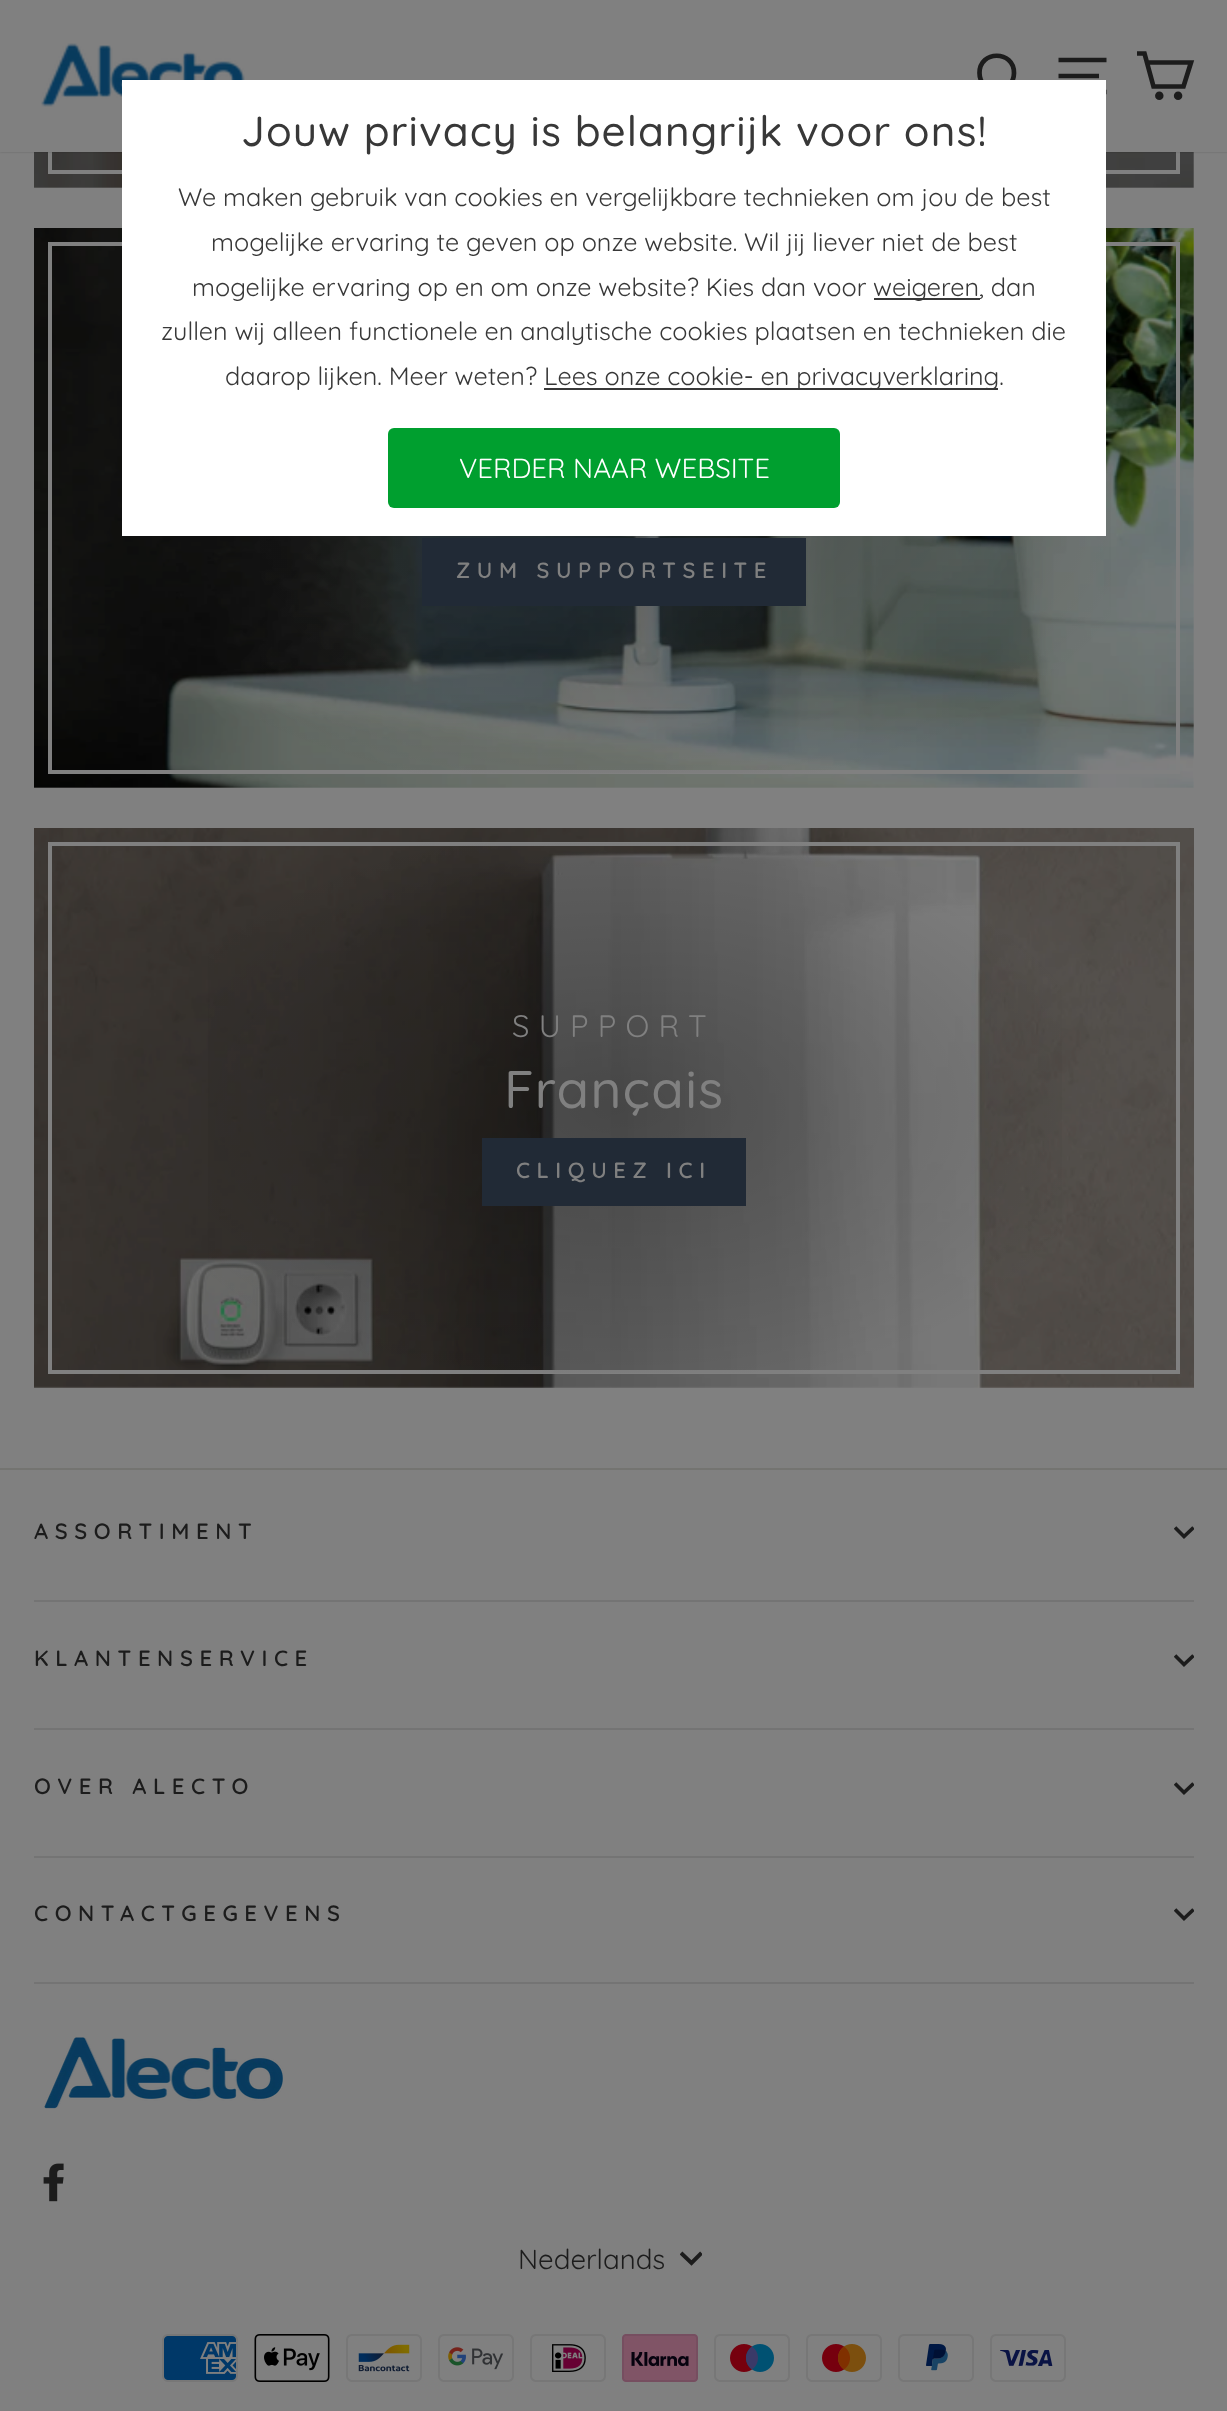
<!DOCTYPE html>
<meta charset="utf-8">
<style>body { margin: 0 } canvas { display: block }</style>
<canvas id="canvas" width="1227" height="2411"></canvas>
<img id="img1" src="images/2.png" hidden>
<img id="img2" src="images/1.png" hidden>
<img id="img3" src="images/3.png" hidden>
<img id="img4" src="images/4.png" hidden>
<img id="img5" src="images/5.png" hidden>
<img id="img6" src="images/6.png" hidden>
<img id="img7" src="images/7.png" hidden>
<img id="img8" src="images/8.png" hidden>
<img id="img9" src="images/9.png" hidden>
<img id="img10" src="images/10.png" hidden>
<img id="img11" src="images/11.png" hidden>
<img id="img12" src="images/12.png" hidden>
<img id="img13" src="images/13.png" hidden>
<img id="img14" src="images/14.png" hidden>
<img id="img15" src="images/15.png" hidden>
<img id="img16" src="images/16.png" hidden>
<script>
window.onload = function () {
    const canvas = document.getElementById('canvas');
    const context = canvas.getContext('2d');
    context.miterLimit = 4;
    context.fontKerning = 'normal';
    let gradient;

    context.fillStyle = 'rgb(128, 128, 128)';
    context.fillRect(0, 0, 1227, 2411);
    context.drawImage(document.getElementById('img1'), 34, 152, 1160, 36);
    context.strokeStyle = 'rgb(128, 128, 128)';
    context.lineWidth = 4;
    context.strokeRect(50, -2, 1128, 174);
    context.fillStyle = 'rgba(0, 0, 0, 0.2)';
    context.filter = 'blur(1px)';
    context.beginPath();
    context.rect(0, 0, 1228, 152);
    context.fill();
    context.filter = 'none';
    context.fillStyle = 'rgb(128, 128, 128)';
    context.fillRect(0, 0, 1227, 152);
    context.drawImage(document.getElementById('img2'), 41, 43, 204, 64);
    context.beginPath();
    context.moveTo(1014, 73);
    context.bezierCurveTo(1014, 95.5, 979.5, 95.5, 979.5, 73);
    context.bezierCurveTo(979.5, 50, 1014, 50, 1014, 73);
    context.closePath();
    context.moveTo(1020.5, 96.5);
    context.lineTo(1009.5, 85.5);
    context.strokeStyle = 'rgb(28, 28, 28)';
    context.lineWidth = 4.7;
    context.stroke();
    context.beginPath();
    context.moveTo(1058.5, 60);
    context.lineTo(1106.5, 60);
    context.moveTo(1058.5, 76);
    context.lineTo(1099, 76);
    context.moveTo(1058.5, 92);
    context.lineTo(1106.5, 92);
    context.stroke();
    context.drawImage(document.getElementById('img3'), 34, 228, 1160, 560);
    context.strokeStyle = 'rgb(128, 128, 128)';
    context.lineWidth = 4;
    context.strokeRect(50, 244, 1128, 528);
    gradient = context.createRadialGradient(614, 956.17, 0, 614, 956.17, 911);
    gradient.addColorStop(0, 'rgba(0, 0, 0, 0.24)');
    gradient.addColorStop(0.6, 'rgba(0, 0, 0, 0)');
    context.fillStyle = gradient;
    context.beginPath();
    context.rect(260, 472, 851, 301);
    context.save();
    context.clip();
    context.scale(1, 484 / 911);
    context.fillRect(0, 0, 1227, 4539);
    context.restore();
    context.fillStyle = 'rgb(255, 255, 255)';
    context.fillRect(122, 80, 984, 456);
    context.fillStyle = 'rgb(56, 56, 56)';
    context.fillRect(874, 298, 106, 2);
    context.fillRect(544, 388, 454, 2);
    context.fillStyle = 'rgb(0, 159, 47)';
    context.beginPath();
    context.roundRect(388, 428, 452, 80, 6);
    context.fill();
    context.beginPath();
    context.moveTo(1147, 62.5);
    context.lineTo(1191, 62.5);
    context.lineTo(1183.5, 86.5);
    context.lineTo(1153.5, 86.5);
    context.lineTo(1144.5, 53.5);
    context.lineTo(1137, 53.5);
    context.strokeStyle = 'rgb(28, 28, 28)';
    context.lineWidth = 4.7;
    context.stroke();
    context.fillStyle = 'rgb(28, 28, 28)';
    context.beginPath();
    context.arc(1159.3, 95.7, 1.9, 0, 2 * Math.PI);
    context.fill();
    context.stroke();
    context.beginPath();
    context.arc(1178.1, 95.7, 1.9, 0, 2 * Math.PI);
    context.fill();
    context.stroke();
    context.fillStyle = 'rgb(33, 42, 54)';
    context.fillRect(422, 538, 384, 68);
    context.drawImage(document.getElementById('img4'), 34, 828, 1160, 560);
    context.strokeStyle = 'rgb(128, 128, 128)';
    context.lineWidth = 4;
    context.strokeRect(50, 844, 1128, 528);
    gradient = context.createRadialGradient(614, 1943.58, 0, 614, 1943.58, 849);
    gradient.addColorStop(0, 'rgba(0, 0, 0, 0.24)');
    gradient.addColorStop(0.6, 'rgba(0, 0, 0, 0)');
    context.fillStyle = gradient;
    context.beginPath();
    context.rect(208, 843, 854, 530);
    context.save();
    context.clip();
    context.scale(1, 484 / 849);
    context.fillRect(0, 0, 1227, 4230);
    context.restore();
    context.fillStyle = 'rgb(33, 42, 54)';
    context.fillRect(482, 1138, 264, 68);
    context.fillStyle = 'rgb(116, 116, 113)';
    context.fillRect(0, 1468, 1227, 2);
    context.save();
    context.beginPath();
    context.rect(1174, 1522, 20, 20);
    context.clip();
    context.beginPath();
    context.moveTo(1175, 1527.5);
    context.lineTo(1184, 1536.5);
    context.lineTo(1193.5, 1527.5);
    context.strokeStyle = 'rgb(28, 28, 28)';
    context.lineWidth = 3.6;
    context.stroke();
    context.restore();
    context.fillStyle = 'rgb(116, 116, 116)';
    context.fillRect(34, 1600, 1160, 2);
    context.save();
    context.beginPath();
    context.rect(1174, 1650, 20, 20);
    context.clip();
    context.beginPath();
    context.moveTo(1175, 1655.5);
    context.lineTo(1184, 1664.5);
    context.lineTo(1193.5, 1655.5);
    context.strokeStyle = 'rgb(28, 28, 28)';
    context.lineWidth = 3.6;
    context.stroke();
    context.restore();
    context.fillRect(34, 1728, 1160, 2);
    context.save();
    context.beginPath();
    context.rect(1174, 1778, 20, 20);
    context.clip();
    context.beginPath();
    context.moveTo(1175, 1783.5);
    context.lineTo(1184, 1792.5);
    context.lineTo(1193.5, 1783.5);
    context.strokeStyle = 'rgb(28, 28, 28)';
    context.lineWidth = 3.6;
    context.stroke();
    context.restore();
    context.fillRect(34, 1856, 1160, 2);
    context.save();
    context.beginPath();
    context.rect(1174, 1904, 20, 20);
    context.clip();
    context.beginPath();
    context.moveTo(1175, 1909.5);
    context.lineTo(1184, 1918.5);
    context.lineTo(1193.5, 1909.5);
    context.strokeStyle = 'rgb(28, 28, 28)';
    context.lineWidth = 3.6;
    context.stroke();
    context.restore();
    context.fillRect(34, 1982, 1160, 2);
    context.drawImage(document.getElementById('img5'), 44, 2037, 239, 72);
    context.drawImage(document.getElementById('img6'), 43, 2163, 21, 39);
    context.save();
    context.beginPath();
    context.rect(680, 2248, 22, 22);
    context.clip();
    context.beginPath();
    context.moveTo(681, 2253);
    context.lineTo(691.5, 2263);
    context.lineTo(701.5, 2253);
    context.strokeStyle = 'rgb(28, 28, 28)';
    context.lineWidth = 3.9;
    context.stroke();
    context.restore();
    context.drawImage(document.getElementById('img7'), 162, 2334, 76, 48);
    context.drawImage(document.getElementById('img8'), 254, 2334, 76, 48);
    context.drawImage(document.getElementById('img9'), 346, 2334, 76, 48);
    context.drawImage(document.getElementById('img10'), 438, 2334, 76, 48);
    context.drawImage(document.getElementById('img11'), 530, 2334, 76, 48);
    context.drawImage(document.getElementById('img12'), 622, 2334, 76, 48);
    context.drawImage(document.getElementById('img13'), 714, 2334, 76, 48);
    context.drawImage(document.getElementById('img14'), 806, 2334, 76, 48);
    context.drawImage(document.getElementById('img15'), 898, 2334, 76, 48);
    context.drawImage(document.getElementById('img16'), 990, 2334, 76, 48);
    context.letterSpacing = '1.05px';
    context.font = '500 42.2px Quicksand';
    context.fillStyle = 'rgb(56, 56, 56)';
    context.fillText('Jouw privacy is belangrijk voor ons!', 241, 146);
    context.letterSpacing = '0px';
    context.font = '25.2px Quicksand';
    context.fillText('We maken gebruik van cookies en vergelijkbare technieken om jou de best', 178, 206);
    context.fillText('mogelijke ervaring te geven op onze website. Wil jij liever niet de best', 211, 251);
    context.fillText('mogelijke ervaring op en om onze website? Kies dan voor', 192, 296);
    context.fillText('weigeren, dan', 873, 296);
    context.fillText('zullen wij alleen functionele en analytische cookies plaatsen en technieken die', 161, 340);
    context.fillText('daarop lijken. Meer weten?', 225, 385);
    context.fillText('Lees onze cookie- en privacyverklaring.', 544, 385);
    context.font = '27.6px Quicksand';
    context.fillStyle = 'rgb(255, 255, 255)';
    context.fillText('VERDER NAAR WEBSITE', 459, 478);
    context.letterSpacing = '6.6px';
    context.font = '600 22px Quicksand';
    context.fillStyle = 'rgb(128, 128, 128)';
    context.fillText('ZUM SUPPORTSEITE', 456, 578);
    context.letterSpacing = '9.25px';
    context.font = '31px Quicksand';
    context.fillText('SUPPORT', 512, 1037);
    context.letterSpacing = '1.25px';
    context.font = '500 53px Quicksand';
    context.fillText('Français', 504, 1108);
    context.letterSpacing = '6.6px';
    context.font = '600 22px Quicksand';
    context.fillText('CLIQUEZ ICI', 516, 1178);
    context.font = '600 22.1px Quicksand';
    context.fillStyle = 'rgb(28, 28, 28)';
    context.fillText('ASSORTIMENT', 34, 1539);
    context.fillText('KLANTENSERVICE', 34, 1666);
    context.fillText('OVER ALECTO', 34, 1794);
    context.fillText('CONTACTGEGEVENS', 34, 1921);
    context.letterSpacing = '0px';
    context.font = '27.6px Quicksand';
    context.fillText('Nederlands', 518, 2269);
};
</script>
